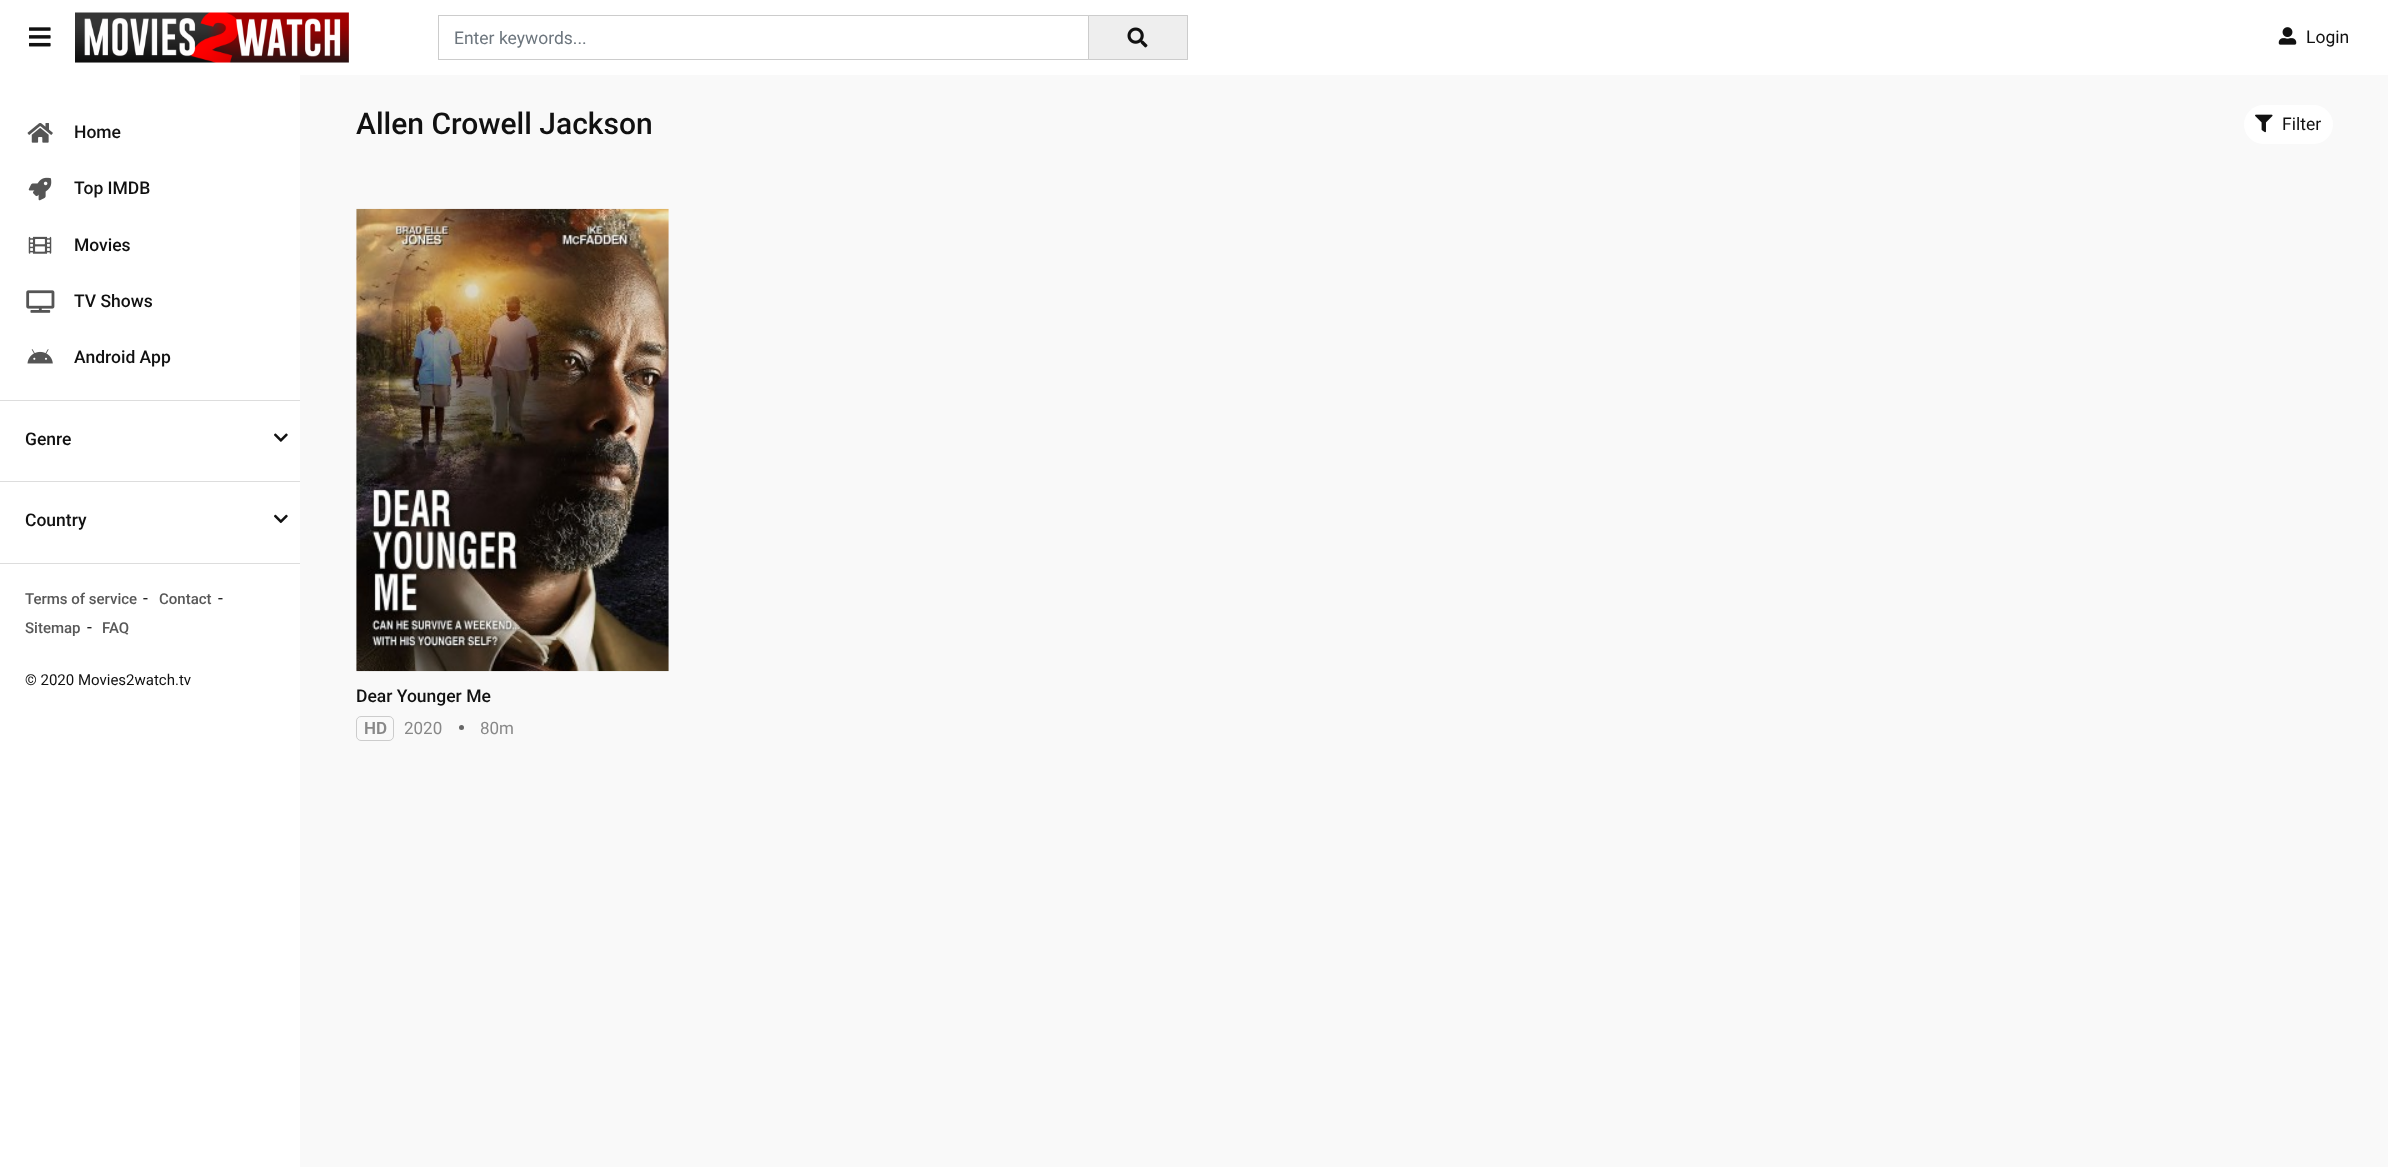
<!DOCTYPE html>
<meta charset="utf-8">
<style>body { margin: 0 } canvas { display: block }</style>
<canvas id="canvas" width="2388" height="1167"></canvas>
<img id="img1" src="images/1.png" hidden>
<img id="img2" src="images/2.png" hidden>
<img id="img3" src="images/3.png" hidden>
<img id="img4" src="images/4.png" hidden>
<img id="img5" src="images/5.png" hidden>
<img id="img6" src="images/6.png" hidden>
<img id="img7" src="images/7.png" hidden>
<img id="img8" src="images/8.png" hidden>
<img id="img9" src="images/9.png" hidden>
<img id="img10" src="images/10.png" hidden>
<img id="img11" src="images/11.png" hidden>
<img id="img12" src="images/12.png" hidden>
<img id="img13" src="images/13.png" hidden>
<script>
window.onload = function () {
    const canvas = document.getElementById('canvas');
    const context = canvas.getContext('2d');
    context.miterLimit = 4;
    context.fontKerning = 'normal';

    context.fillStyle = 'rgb(249, 249, 249)';
    context.fillRect(0, 0, 2388, 1167);
    context.fillStyle = 'rgb(255, 255, 255)';
    context.fillRect(0, 75, 300, 1092);
    context.fillStyle = 'rgb(221, 221, 221)';
    context.fillRect(0, 400, 300, 1);
    context.drawImage(document.getElementById('img1'), 27, 123, 26, 20);
    context.drawImage(document.getElementById('img2'), 28, 177, 24, 24);
    context.drawImage(document.getElementById('img3'), 28, 236, 24, 18);
    context.drawImage(document.getElementById('img4'), 26, 290, 29, 23);
    context.drawImage(document.getElementById('img5'), 27, 349, 26, 15);
    context.fillRect(0, 481, 300, 1);
    context.drawImage(document.getElementById('img6'), 274, 433, 14, 9);
    context.fillRect(0, 563, 300, 1);
    context.drawImage(document.getElementById('img7'), 274, 514, 14, 10);
    context.fillStyle = 'rgb(255, 255, 255)';
    context.fillRect(0, 0, 2388, 75);
    context.drawImage(document.getElementById('img8'), 29, 27, 22, 20);
    context.drawImage(document.getElementById('img9'), 75, 12, 274, 51);
    context.strokeStyle = 'rgb(204, 204, 204)';
    context.strokeRect(438.5, 15.5, 749, 44);
    context.fillStyle = 'rgb(238, 238, 238)';
    context.beginPath();
    context.rect(1088.5, 15.5, 99, 44);
    context.fill();
    context.stroke();
    context.drawImage(document.getElementById('img10'), 1127, 27, 21, 21);
    context.drawImage(document.getElementById('img11'), 2278, 27, 19, 18);
    context.fillStyle = 'rgb(255, 255, 255)';
    context.beginPath();
    context.roundRect(2244, 105, 89, 39, 19.5);
    context.fill();
    context.drawImage(document.getElementById('img12'), 2255, 114, 18, 19);
    context.drawImage(document.getElementById('img13'), 356, 208, 313, 464);
    context.beginPath();
    context.roundRect(356.5, 716.5, 37, 24, 4.5);
    context.stroke();
    context.fillStyle = 'rgb(102, 102, 102)';
    context.beginPath();
    context.arc(461.5, 727.5, 2.5, 0, 2 * Math.PI);
    context.fill();
    context.font = '500 17.5px Roboto';
    context.fillStyle = 'rgb(17, 17, 17)';
    context.fillText('Home', 74, 138);
    context.fillText('Top IMDB', 74, 194);
    context.fillText('Movies', 74, 251);
    context.fillText('TV Shows', 74, 307);
    context.fillText('Android App', 74, 363);
    context.fillText('Genre', 25, 445);
    context.fillText('Country', 25, 526);
    context.font = '500 15px Roboto';
    context.fillStyle = 'rgb(88, 88, 88)';
    context.fillText('Terms of service', 25, 604);
    context.font = '17.5px Roboto';
    context.fillStyle = 'rgb(17, 17, 17)';
    context.fillText('-', 143, 604);
    context.font = '500 15px Roboto';
    context.fillStyle = 'rgb(88, 88, 88)';
    context.fillText('Contact', 159, 604);
    context.font = '17.5px Roboto';
    context.fillStyle = 'rgb(17, 17, 17)';
    context.fillText('-', 218, 604);
    context.font = '500 15px Roboto';
    context.fillStyle = 'rgb(88, 88, 88)';
    context.fillText('Sitemap', 25, 633);
    context.font = '17.5px Roboto';
    context.fillStyle = 'rgb(17, 17, 17)';
    context.fillText('-', 87, 633);
    context.font = '500 15px Roboto';
    context.fillStyle = 'rgb(88, 88, 88)';
    context.fillText('FAQ', 102, 633);
    context.font = '15px Roboto';
    context.fillStyle = 'rgb(17, 17, 17)';
    context.fillText('© 2020 Movies2watch.tv', 25, 685);
    context.font = '17.5px Roboto';
    context.fillStyle = 'rgb(108, 117, 125)';
    context.fillText('Enter keywords...', 454, 44);
    context.fillStyle = 'rgb(17, 17, 17)';
    context.fillText('Login', 2306, 43);
    context.font = '500 30px Roboto';
    context.fillText('Allen Crowell Jackson', 356, 134);
    context.font = '17.5px Roboto';
    context.fillText('Filter', 2282, 130);
    context.font = '500 17.5px Roboto';
    context.fillText('Dear Younger Me', 356, 702);
    context.font = '600 17px Roboto';
    context.fillStyle = 'rgb(136, 136, 136)';
    context.fillText('HD', 364, 734);
    context.font = '17px Roboto';
    context.fillText('2020', 404, 734);
    context.fillText('80m', 480, 734);
};
</script>
